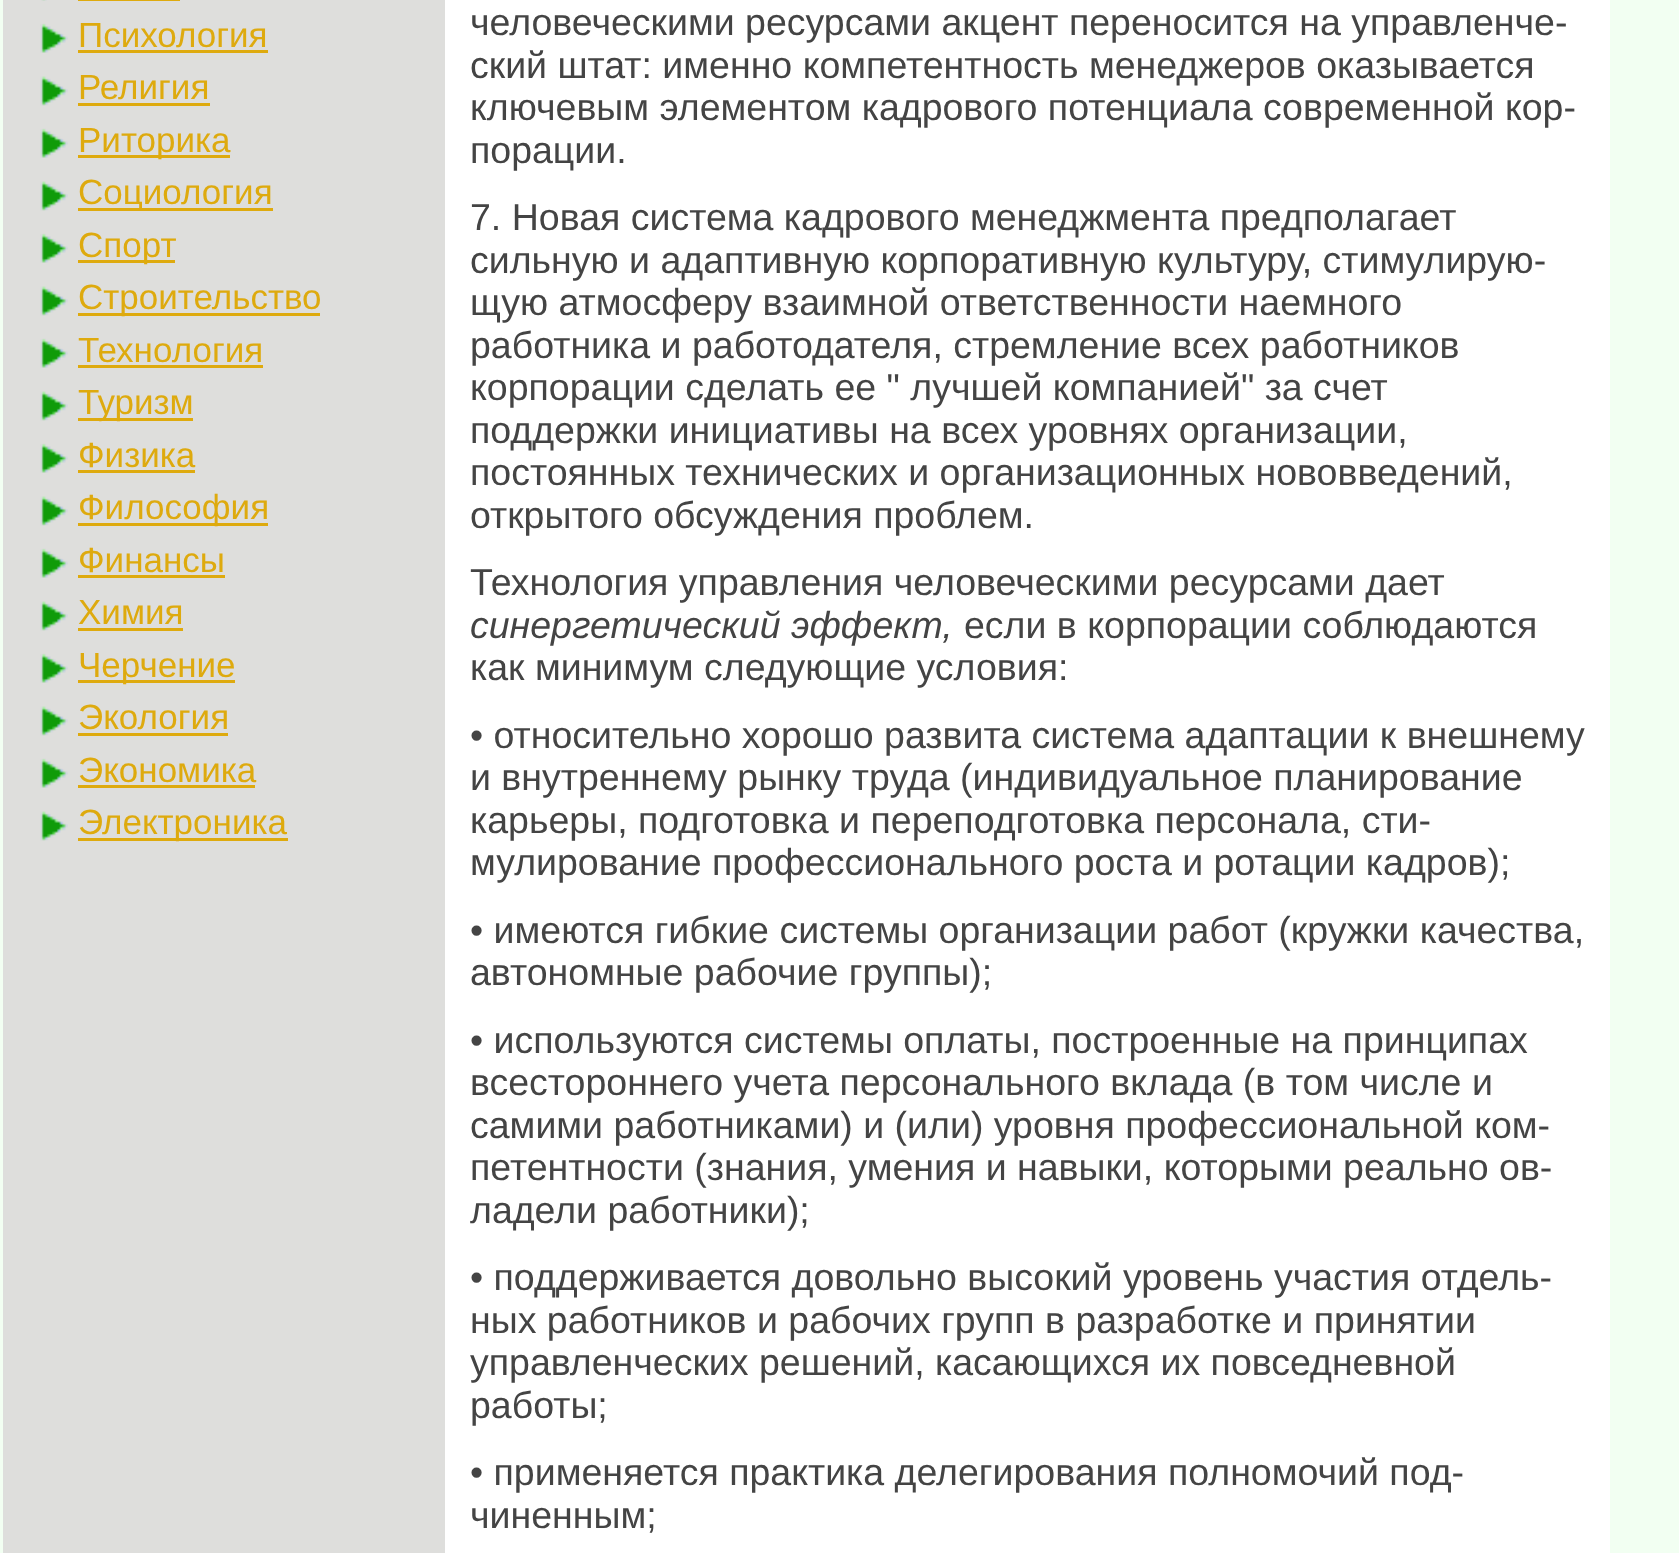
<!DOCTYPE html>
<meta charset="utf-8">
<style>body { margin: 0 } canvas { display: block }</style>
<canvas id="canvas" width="1679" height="1553"></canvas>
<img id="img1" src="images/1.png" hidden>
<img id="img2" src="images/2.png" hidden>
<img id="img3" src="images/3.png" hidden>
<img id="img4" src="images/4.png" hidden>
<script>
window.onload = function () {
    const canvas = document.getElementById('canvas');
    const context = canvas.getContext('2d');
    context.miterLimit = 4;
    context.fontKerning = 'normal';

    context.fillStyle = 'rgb(242, 255, 242)';
    context.fillRect(0, 0, 1679, 1553);
    context.fillStyle = 'rgb(222, 222, 220)';
    context.fillRect(3, 0, 442, 1553);
    context.drawImage(document.getElementById('img1'), 41, 0, 6, 1);
    context.fillStyle = 'rgb(222, 170, 14)';
    context.fillRect(78, 0, 102, 1);
    context.drawImage(document.getElementById('img2'), 40, 23, 28, 30);
    context.fillRect(78, 50, 190, 3);
    context.drawImage(document.getElementById('img3'), 40, 76, 28, 30);
    context.fillRect(78, 103, 132, 3);
    context.drawImage(document.getElementById('img2'), 40, 128, 28, 30);
    context.fillRect(78, 155, 152, 3);
    context.drawImage(document.getElementById('img3'), 40, 181, 28, 30);
    context.fillRect(78, 208, 195, 3);
    context.drawImage(document.getElementById('img2'), 40, 233, 28, 30);
    context.fillRect(78, 260, 97, 3);
    context.drawImage(document.getElementById('img3'), 40, 286, 28, 30);
    context.fillRect(78, 313, 242, 3);
    context.drawImage(document.getElementById('img2'), 40, 338, 28, 30);
    context.fillRect(78, 365, 185, 3);
    context.drawImage(document.getElementById('img3'), 40, 391, 28, 30);
    context.fillRect(78, 418, 115, 3);
    context.drawImage(document.getElementById('img2'), 40, 443, 28, 30);
    context.fillRect(78, 470, 117, 3);
    context.drawImage(document.getElementById('img4'), 40, 496, 28, 30);
    context.fillRect(78, 523, 190, 3);
    context.drawImage(document.getElementById('img2'), 40, 548, 28, 30);
    context.fillRect(78, 575, 147, 3);
    context.drawImage(document.getElementById('img3'), 40, 601, 28, 30);
    context.fillRect(78, 628, 105, 3);
    context.drawImage(document.getElementById('img2'), 40, 653, 28, 30);
    context.fillRect(78, 680, 157, 3);
    context.drawImage(document.getElementById('img3'), 40, 706, 28, 30);
    context.fillRect(78, 733, 150, 3);
    context.drawImage(document.getElementById('img2'), 40, 758, 28, 30);
    context.fillRect(78, 785, 177, 3);
    context.drawImage(document.getElementById('img3'), 40, 811, 28, 30);
    context.fillRect(78, 838, 210, 3);
    context.fillStyle = 'rgb(255, 255, 255)';
    context.fillRect(445, 0, 1165, 1553);
    context.font = '35px Liberation Sans';
    context.fillStyle = 'rgb(222, 170, 14)';
    context.fillText('Психология', 78, 47);
    context.fillText('Религия', 78, 99);
    context.fillText('Риторика', 78, 152);
    context.fillText('Социология', 78, 204);
    context.fillText('Спорт', 78, 257);
    context.fillText('Строительство', 78, 309);
    context.fillText('Технология', 78, 362);
    context.fillText('Туризм', 78, 414);
    context.fillText('Физика', 78, 467);
    context.fillText('Философия', 78, 519);
    context.fillText('Финансы', 78, 572);
    context.fillText('Химия', 78, 624);
    context.fillText('Черчение', 78, 677);
    context.fillText('Экология', 78, 729);
    context.fillText('Экономика', 78, 782);
    context.fillText('Электроника', 78, 834);
    context.font = '37.5px Liberation Sans';
    context.fillStyle = 'rgb(68, 68, 68)';
    context.fillText('человеческими ресурсами акцент переносится на управленче-', 470, 35);
    context.fillText('ский штат: именно компетентность менеджеров оказывается', 470, 78);
    context.fillText('ключевым элементом кадрового потенциала современной кор-', 470, 120);
    context.fillText('порации.', 470, 163);
    context.fillText('7. Новая система кадрового менеджмента предполагает', 470, 230);
    context.fillText('сильную и адаптивную корпоративную культуру, стимулирую-', 470, 273);
    context.fillText('щую атмосферу взаимной ответственности наемного', 470, 315);
    context.fillText('работника и работодателя, стремление всех работников', 470, 358);
    context.fillText('корпорации сделать ее " лучшей компанией" за счет', 470, 400);
    context.fillText('поддержки инициативы на всех уровнях организации,', 470, 443);
    context.fillText('постоянных технических и организационных нововведений,', 470, 485);
    context.fillText('открытого обсуждения проблем.', 470, 528);
    context.fillText('Технология управления человеческими ресурсами дает', 470, 595);
    context.font = 'italic 37.5px Liberation Sans';
    context.fillText('синергетический эффект,', 470, 638);
    context.font = '37.5px Liberation Sans';
    context.fillText('если в корпорации соблюдаются', 964, 638);
    context.fillText('как минимум следующие условия:', 470, 680);
    context.fillText('• относительно хорошо развита система адаптации к внешнему', 470, 748);
    context.fillText('и внутреннему рынку труда (индивидуальное планирование', 470, 790);
    context.fillText('карьеры, подготовка и переподготовка персонала, сти-', 470, 833);
    context.fillText('мулирование профессионального роста и ротации кадров);', 470, 875);
    context.fillText('• имеются гибкие системы организации работ (кружки качества,', 470, 943);
    context.fillText('автономные рабочие группы);', 470, 985);
    context.fillText('• используются системы оплаты, построенные на принципах', 470, 1053);
    context.fillText('всестороннего учета персонального вклада (в том числе и', 470, 1095);
    context.fillText('самими работниками) и (или) уровня профессиональной ком-', 470, 1138);
    context.fillText('петентности (знания, умения и навыки, которыми реально ов-', 470, 1180);
    context.fillText('ладели работники);', 470, 1223);
    context.fillText('• поддерживается довольно высокий уровень участия отдель-', 470, 1290);
    context.fillText('ных работников и рабочих групп в разработке и принятии', 470, 1333);
    context.fillText('управленческих решений, касающихся их повседневной', 470, 1375);
    context.fillText('работы;', 470, 1418);
    context.fillText('• применяется практика делегирования полномочий под-', 470, 1485);
    context.fillText('чиненным;', 470, 1528);
};
</script>
